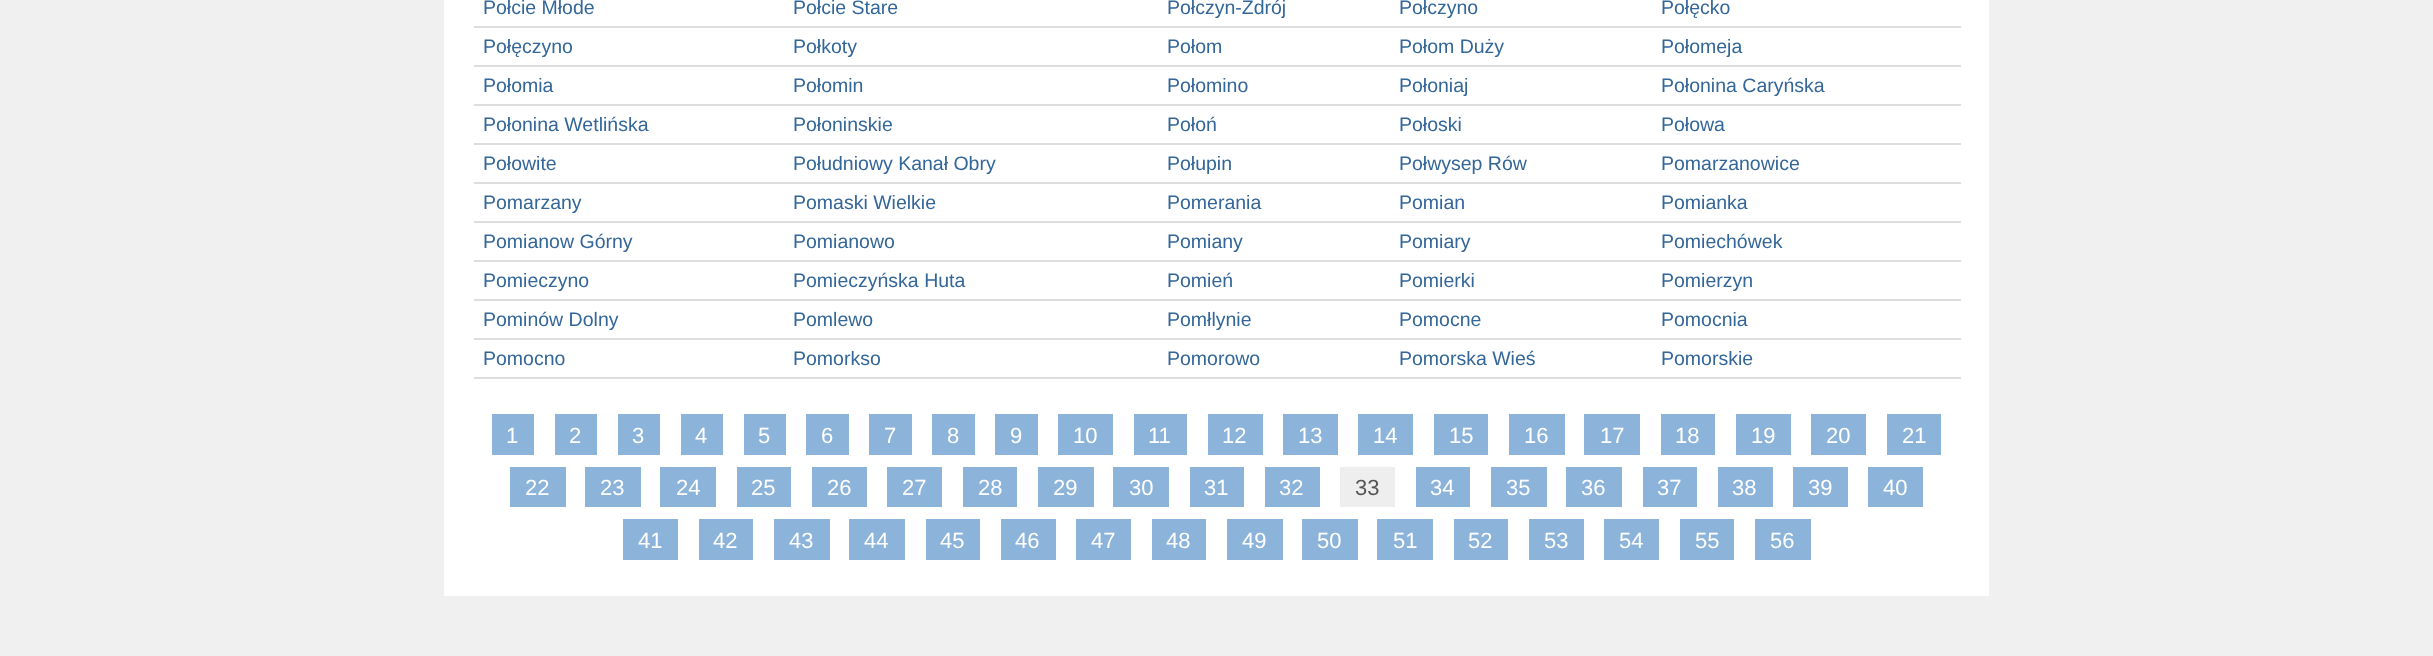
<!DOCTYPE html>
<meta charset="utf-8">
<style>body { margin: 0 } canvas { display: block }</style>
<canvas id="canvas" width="2433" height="656"></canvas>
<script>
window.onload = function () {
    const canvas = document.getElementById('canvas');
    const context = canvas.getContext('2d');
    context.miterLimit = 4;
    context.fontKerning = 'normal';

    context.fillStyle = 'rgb(240, 240, 240)';
    context.fillRect(0, 0, 2433, 656);
    context.fillStyle = 'rgb(255, 255, 255)';
    context.fillRect(444, 0, 1545, 596);
    context.fillStyle = 'rgb(221, 221, 221)';
    context.fillRect(474, 26, 1487, 2);
    context.fillRect(474, 65, 1487, 2);
    context.fillRect(474, 104, 1487, 2);
    context.fillRect(474, 143, 1487, 2);
    context.fillRect(474, 182, 1487, 2);
    context.fillRect(474, 221, 1487, 2);
    context.fillRect(474, 260, 1487, 2);
    context.fillRect(474, 299, 1487, 2);
    context.fillRect(474, 338, 1487, 2);
    context.fillRect(474, 377, 1487, 2);
    context.fillStyle = 'rgb(140, 179, 217)';
    context.fillRect(492, 414, 42, 41);
    context.fillRect(555, 414, 42, 41);
    context.fillRect(618, 414, 42, 41);
    context.fillRect(681, 414, 42, 41);
    context.fillRect(744, 414, 42, 41);
    context.fillRect(806, 414, 43, 41);
    context.fillRect(869, 414, 43, 41);
    context.fillRect(932, 414, 43, 41);
    context.fillRect(995, 414, 43, 41);
    context.fillRect(1058, 414, 55, 41);
    context.fillRect(1134, 414, 53, 41);
    context.fillRect(1208, 414, 55, 41);
    context.fillRect(1283, 414, 55, 41);
    context.fillRect(1358, 414, 55, 41);
    context.fillRect(1434, 414, 54, 41);
    context.fillRect(1509, 414, 56, 41);
    context.fillRect(1584, 414, 56, 41);
    context.fillRect(1661, 414, 54, 41);
    context.fillRect(1736, 414, 55, 41);
    context.fillRect(1811, 414, 55, 41);
    context.fillRect(1887, 414, 54, 41);
    context.fillRect(510, 467, 56, 40);
    context.fillRect(585, 467, 56, 40);
    context.fillRect(660, 467, 56, 40);
    context.fillRect(737, 467, 54, 40);
    context.fillRect(812, 467, 55, 40);
    context.fillRect(887, 467, 55, 40);
    context.fillRect(963, 467, 54, 40);
    context.fillRect(1038, 467, 56, 40);
    context.fillRect(1113, 467, 56, 40);
    context.fillRect(1190, 467, 54, 40);
    context.fillRect(1265, 467, 55, 40);
    context.fillStyle = 'rgb(238, 238, 238)';
    context.fillRect(1340, 467, 55, 40);
    context.fillStyle = 'rgb(140, 179, 217)';
    context.fillRect(1416, 467, 54, 40);
    context.fillRect(1491, 467, 56, 40);
    context.fillRect(1566, 467, 56, 40);
    context.fillRect(1643, 467, 54, 40);
    context.fillRect(1718, 467, 55, 40);
    context.fillRect(1793, 467, 55, 40);
    context.fillRect(1868, 467, 55, 40);
    context.fillRect(623, 519, 55, 41);
    context.fillRect(699, 519, 54, 41);
    context.fillRect(774, 519, 56, 41);
    context.fillRect(849, 519, 56, 41);
    context.fillRect(926, 519, 54, 41);
    context.fillRect(1001, 519, 55, 41);
    context.fillRect(1076, 519, 55, 41);
    context.fillRect(1152, 519, 54, 41);
    context.fillRect(1227, 519, 56, 41);
    context.fillRect(1302, 519, 56, 41);
    context.fillRect(1377, 519, 56, 41);
    context.fillRect(1454, 519, 54, 41);
    context.fillRect(1529, 519, 55, 41);
    context.fillRect(1604, 519, 55, 41);
    context.fillRect(1680, 519, 54, 41);
    context.fillRect(1755, 519, 56, 41);
    context.font = '19.5px Liberation Sans';
    context.fillStyle = 'rgb(51, 102, 153)';
    context.fillText('Połcie Młode', 483, 14);
    context.fillText('Połcie Stare', 793, 14);
    context.fillText('Połczyn-Zdrój', 1167, 14);
    context.fillText('Połczyno', 1399, 14);
    context.fillText('Połęcko', 1661, 14);
    context.fillText('Połęczyno', 483, 53);
    context.fillText('Połkoty', 793, 53);
    context.fillText('Połom', 1167, 53);
    context.fillText('Połom Duży', 1399, 53);
    context.fillText('Połomeja', 1661, 53);
    context.fillText('Połomia', 483, 92);
    context.fillText('Połomin', 793, 92);
    context.fillText('Połomino', 1167, 92);
    context.fillText('Połoniaj', 1399, 92);
    context.fillText('Połonina Caryńska', 1661, 92);
    context.fillText('Połonina Wetlińska', 483, 131);
    context.fillText('Połoninskie', 793, 131);
    context.fillText('Połoń', 1167, 131);
    context.fillText('Połoski', 1399, 131);
    context.fillText('Połowa', 1661, 131);
    context.fillText('Połowite', 483, 170);
    context.fillText('Południowy Kanał Obry', 793, 170);
    context.fillText('Połupin', 1167, 170);
    context.fillText('Połwysep Rów', 1399, 170);
    context.fillText('Pomarzanowice', 1661, 170);
    context.fillText('Pomarzany', 483, 209);
    context.fillText('Pomaski Wielkie', 793, 209);
    context.fillText('Pomerania', 1167, 209);
    context.fillText('Pomian', 1399, 209);
    context.fillText('Pomianka', 1661, 209);
    context.fillText('Pomianow Górny', 483, 248);
    context.fillText('Pomianowo', 793, 248);
    context.fillText('Pomiany', 1167, 248);
    context.fillText('Pomiary', 1399, 248);
    context.fillText('Pomiechówek', 1661, 248);
    context.fillText('Pomieczyno', 483, 287);
    context.fillText('Pomieczyńska Huta', 793, 287);
    context.fillText('Pomień', 1167, 287);
    context.fillText('Pomierki', 1399, 287);
    context.fillText('Pomierzyn', 1661, 287);
    context.fillText('Pominów Dolny', 483, 326);
    context.fillText('Pomlewo', 793, 326);
    context.fillText('Pomłlynie', 1167, 326);
    context.fillText('Pomocne', 1399, 326);
    context.fillText('Pomocnia', 1661, 326);
    context.fillText('Pomocno', 483, 365);
    context.fillText('Pomorkso', 793, 365);
    context.fillText('Pomorowo', 1167, 365);
    context.fillText('Pomorska Wieś', 1399, 365);
    context.fillText('Pomorskie', 1661, 365);
    context.font = '22px Liberation Sans';
    context.fillStyle = 'rgb(255, 255, 255)';
    context.fillText('1', 506, 443);
    context.fillText('2', 569, 443);
    context.fillText('3', 632, 443);
    context.fillText('4', 695, 443);
    context.fillText('5', 758, 443);
    context.fillText('6', 821, 443);
    context.fillText('7', 884, 443);
    context.fillText('8', 947, 443);
    context.fillText('9', 1010, 443);
    context.fillText('10', 1073, 443);
    context.fillText('11', 1148, 443);
    context.fillText('12', 1222, 443);
    context.fillText('13', 1298, 443);
    context.fillText('14', 1373, 443);
    context.fillText('15', 1449, 443);
    context.fillText('16', 1524, 443);
    context.fillText('17', 1600, 443);
    context.fillText('18', 1675, 443);
    context.fillText('19', 1751, 443);
    context.fillText('20', 1826, 443);
    context.fillText('21', 1902, 443);
    context.fillText('22', 525, 495);
    context.fillText('23', 600, 495);
    context.fillText('24', 676, 495);
    context.fillText('25', 751, 495);
    context.fillText('26', 827, 495);
    context.fillText('27', 902, 495);
    context.fillText('28', 978, 495);
    context.fillText('29', 1053, 495);
    context.fillText('30', 1129, 495);
    context.fillText('31', 1204, 495);
    context.fillText('32', 1279, 495);
    context.fillStyle = 'rgb(85, 85, 85)';
    context.fillText('33', 1355, 495);
    context.fillStyle = 'rgb(255, 255, 255)';
    context.fillText('34', 1430, 495);
    context.fillText('35', 1506, 495);
    context.fillText('36', 1581, 495);
    context.fillText('37', 1657, 495);
    context.fillText('38', 1732, 495);
    context.fillText('39', 1808, 495);
    context.fillText('40', 1883, 495);
    context.fillText('41', 638, 548);
    context.fillText('42', 713, 548);
    context.fillText('43', 789, 548);
    context.fillText('44', 864, 548);
    context.fillText('45', 940, 548);
    context.fillText('46', 1015, 548);
    context.fillText('47', 1091, 548);
    context.fillText('48', 1166, 548);
    context.fillText('49', 1242, 548);
    context.fillText('50', 1317, 548);
    context.fillText('51', 1393, 548);
    context.fillText('52', 1468, 548);
    context.fillText('53', 1544, 548);
    context.fillText('54', 1619, 548);
    context.fillText('55', 1695, 548);
    context.fillText('56', 1770, 548);
};
</script>
